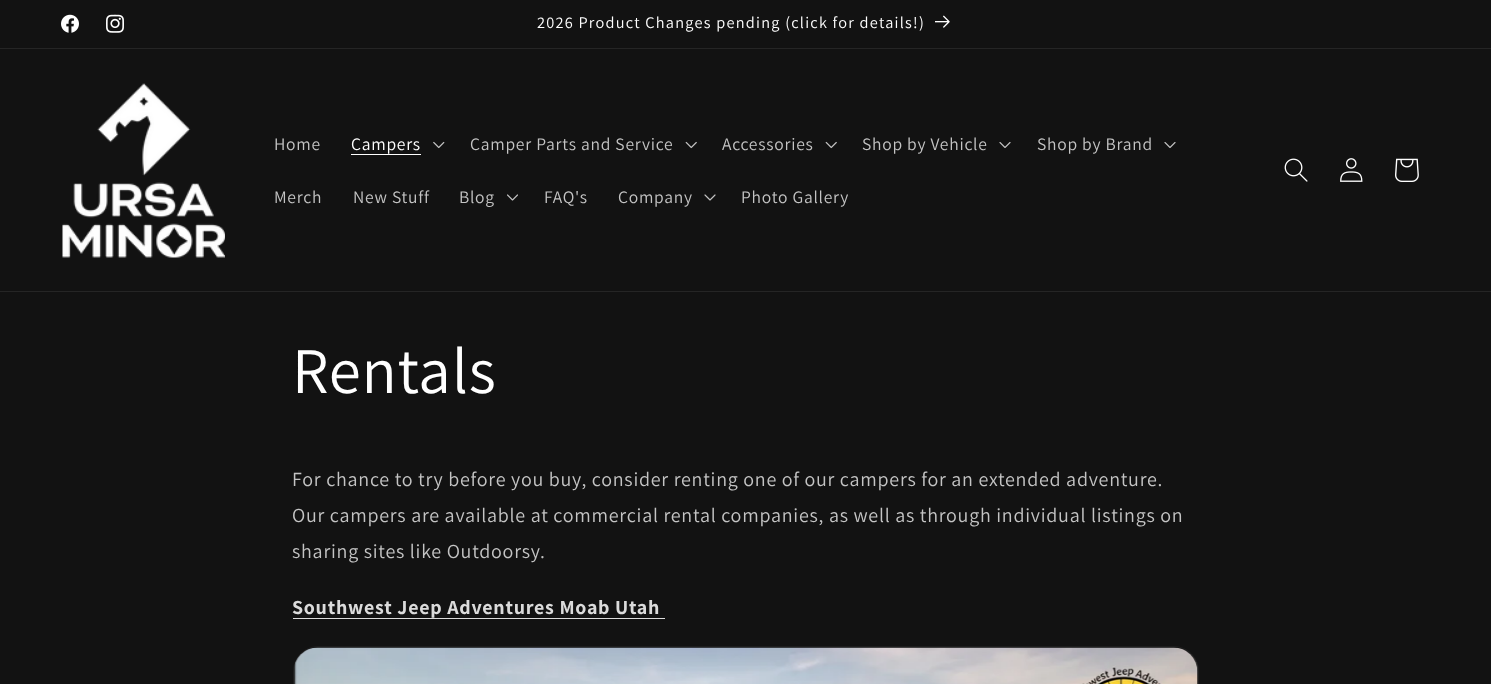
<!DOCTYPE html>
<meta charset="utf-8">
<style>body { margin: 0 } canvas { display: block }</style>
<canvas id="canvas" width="1491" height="684"></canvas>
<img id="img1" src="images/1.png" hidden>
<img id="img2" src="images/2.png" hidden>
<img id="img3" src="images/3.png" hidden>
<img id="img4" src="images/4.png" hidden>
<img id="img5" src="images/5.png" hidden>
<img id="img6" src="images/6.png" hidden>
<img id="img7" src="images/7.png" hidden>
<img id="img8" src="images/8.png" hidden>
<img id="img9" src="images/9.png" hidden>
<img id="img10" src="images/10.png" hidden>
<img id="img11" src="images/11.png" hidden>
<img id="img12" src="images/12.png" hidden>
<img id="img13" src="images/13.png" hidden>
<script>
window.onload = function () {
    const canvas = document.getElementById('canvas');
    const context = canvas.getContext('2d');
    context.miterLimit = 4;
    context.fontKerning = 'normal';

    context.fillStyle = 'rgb(18, 18, 18)';
    context.fillRect(0, 0, 1491, 684);
    context.fillStyle = 'rgb(37, 37, 37)';
    context.fillRect(0, 48, 1491, 1);
    context.drawImage(document.getElementById('img1'), 61, 14, 18, 19);
    context.drawImage(document.getElementById('img2'), 106, 14, 18, 19);
    context.drawImage(document.getElementById('img3'), 935, 15, 15, 13);
    context.fillRect(0, 291, 1491, 1);
    context.drawImage(document.getElementById('img4'), 62, 83, 163, 175);
    context.fillStyle = 'rgb(255, 255, 255)';
    context.fillRect(351, 154, 70, 1);
    context.drawImage(document.getElementById('img5'), 433, 141, 12, 8);
    context.drawImage(document.getElementById('img6'), 685, 141, 12, 8);
    context.drawImage(document.getElementById('img6'), 825, 141, 12, 8);
    context.drawImage(document.getElementById('img7'), 999, 142, 12, 6);
    context.drawImage(document.getElementById('img7'), 1164, 142, 12, 6);
    context.drawImage(document.getElementById('img8'), 507, 194, 11, 7);
    context.drawImage(document.getElementById('img9'), 704, 194, 12, 7);
    context.drawImage(document.getElementById('img10'), 1284, 158, 24, 24);
    context.drawImage(document.getElementById('img11'), 1340, 158, 23, 24);
    context.drawImage(document.getElementById('img12'), 1395, 158, 24, 24);
    context.fillStyle = 'rgb(219, 219, 219)';
    context.fillRect(293, 618, 372, 1);
    context.beginPath();
    context.roundRect(293.5, 646.5, 905, 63, 24.5);
    context.strokeStyle = 'rgb(30, 30, 30)';
    context.stroke();
    context.drawImage(document.getElementById('img13'), 294, 647, 904, 37);
    context.letterSpacing = '1.25px';
    context.font = '16.25px Assistant';
    context.fillStyle = 'rgb(255, 255, 255)';
    context.fillText('2026 Product Changes pending (click for details!)', 537, 28);
    context.letterSpacing = '0.75px';
    context.font = '17.5px Assistant';
    context.fillStyle = 'rgb(196, 196, 196)';
    context.fillText('Home', 274, 150);
    context.fillStyle = 'rgb(255, 255, 255)';
    context.fillText('Campers', 351, 150);
    context.fillStyle = 'rgb(196, 196, 196)';
    context.fillText('Camper Parts and Service', 470, 150);
    context.fillText('Accessories', 722, 150);
    context.fillText('Shop by Vehicle', 862, 150);
    context.fillText('Shop by Brand', 1037, 150);
    context.fillText('Merch', 274, 203);
    context.fillText('New Stuff', 353, 203);
    context.fillText('Blog', 459, 203);
    context.fillText('FAQ\'s', 544, 203);
    context.fillText('Company', 618, 203);
    context.fillText('Photo Gallery', 741, 203);
    context.font = '65px Assistant';
    context.fillStyle = 'rgb(255, 255, 255)';
    context.fillText('Rentals', 292, 393);
    context.font = '20px Assistant';
    context.fillStyle = 'rgb(196, 196, 196)';
    context.fillText('For chance to try before you buy, consider renting one of our campers for an extended adventure.', 292, 486);
    context.fillText('Our campers are available at commercial rental companies, as well as through individual listings on', 292, 522);
    context.fillText('sharing sites like Outdoorsy.', 292, 558);
    context.font = 'bold 20px Assistant';
    context.fillStyle = 'rgb(219, 219, 219)';
    context.fillText('Southwest Jeep Adventures Moab Utah', 292, 614);
};
</script>
